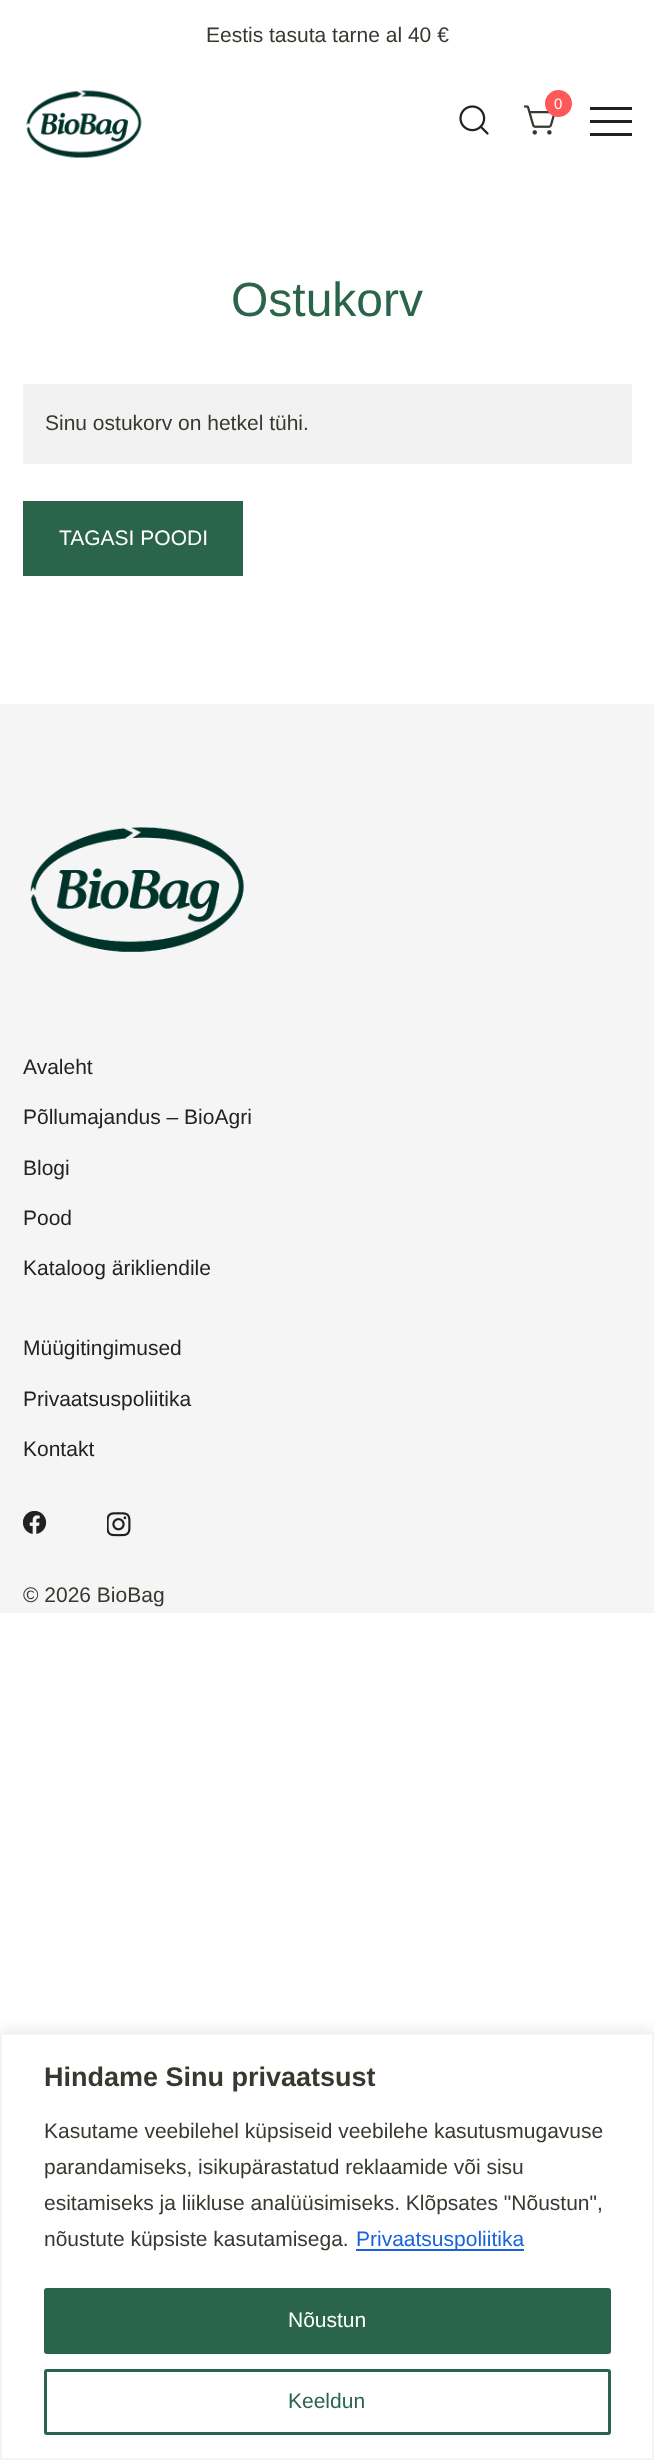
<!DOCTYPE html>
<meta charset="utf-8">
<style>body { margin: 0 } canvas { display: block }</style>
<canvas id="canvas" width="654" height="2460"></canvas>
<img id="img1" src="images/1.png" hidden>
<img id="img2" src="images/2.png" hidden>
<img id="img3" src="images/3.png" hidden>
<img id="img4" src="images/4.png" hidden>
<img id="img5" src="images/5.png" hidden>
<img id="img6" src="images/6.png" hidden>
<script>
window.onload = function () {
    const canvas = document.getElementById('canvas');
    const context = canvas.getContext('2d');
    context.miterLimit = 4;
    context.fontKerning = 'normal';

    context.fillStyle = 'rgb(255, 255, 255)';
    context.fillRect(0, 0, 654, 2460);
    context.drawImage(document.getElementById('img1'), 26, 90, 116, 68);
    context.drawImage(document.getElementById('img2'), 459, 105, 30, 30);
    context.drawImage(document.getElementById('img3'), 524, 105, 31, 30);
    context.fillStyle = 'rgb(255, 88, 88)';
    context.beginPath();
    context.arc(558.5, 103.5, 12.5, 0, 2 * Math.PI);
    context.fill();
    context.strokeStyle = 'rgb(255, 88, 88)';
    context.lineWidth = 2;
    context.stroke();
    context.fillStyle = 'rgb(33, 33, 33)';
    context.fillRect(590, 107, 42, 3);
    context.fillRect(590, 120, 42, 3);
    context.fillRect(590, 133, 42, 3);
    context.fillStyle = 'rgb(242, 242, 242)';
    context.fillRect(23, 384, 609, 80);
    context.fillStyle = 'rgb(42, 100, 74)';
    context.fillRect(23, 501, 220, 75);
    context.fillStyle = 'rgb(245, 245, 245)';
    context.fillRect(0, 704, 654, 909);
    context.drawImage(document.getElementById('img4'), 30, 827, 214, 125);
    context.drawImage(document.getElementById('img5'), 23, 1511, 24, 23);
    context.drawImage(document.getElementById('img6'), 107, 1512, 24, 25);
    context.save();
    context.beginPath();
    context.rect(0, 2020, 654, 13);
    context.clip();
    context.fillStyle = 'rgba(172, 171, 171, 0.3)';
    context.filter = 'blur(7.5px)';
    context.beginPath();
    context.rect(0, 2031, 654, 428);
    context.fill();
    context.filter = 'none';
    context.restore();
    context.strokeStyle = 'rgb(244, 244, 244)';
    context.strokeRect(1, 2034, 652, 425);
    context.fillStyle = 'rgb(24, 99, 220)';
    context.fillRect(356, 2249, 168, 2);
    context.fillStyle = 'rgb(42, 100, 74)';
    context.beginPath();
    context.roundRect(45.5, 2289.5, 564, 63, 1.5);
    context.fill();
    context.strokeStyle = 'rgb(42, 100, 74)';
    context.lineWidth = 3;
    context.stroke();
    context.beginPath();
    context.roundRect(45.5, 2370.5, 564, 63, 1.5);
    context.stroke();
    context.font = '21px Liberation Sans';
    context.fillStyle = 'rgb(56, 56, 49)';
    context.fillText('Eestis tasuta tarne al 40 €', 206, 42);
    context.font = '15px Liberation Sans';
    context.fillStyle = 'rgb(255, 255, 255)';
    context.fillText('0', 554, 109);
    context.font = '48px Liberation Sans';
    context.fillStyle = 'rgb(42, 100, 74)';
    context.fillText('Ostukorv', 231, 316);
    context.font = '21px Liberation Sans';
    context.fillStyle = 'rgb(56, 56, 49)';
    context.fillText('Sinu ostukorv on hetkel tühi.', 45, 430);
    context.fillStyle = 'rgb(255, 255, 255)';
    context.fillText('TAGASI POODI', 59, 545);
    context.fillStyle = 'rgb(34, 34, 34)';
    context.fillText('Avaleht', 23, 1074);
    context.fillText('Põllumajandus – BioAgri', 23, 1124);
    context.fillText('Blogi', 23, 1175);
    context.fillText('Pood', 23, 1225);
    context.fillText('Kataloog ärikliendile', 23, 1275);
    context.fillText('Müügitingimused', 23, 1355);
    context.fillText('Privaatsuspoliitika', 23, 1406);
    context.fillText('Kontakt', 23, 1456);
    context.fillStyle = 'rgb(56, 56, 49)';
    context.fillText('© 2026 BioBag', 23, 1602);
    context.font = 'bold 27px Liberation Sans';
    context.fillText('Hindame Sinu privaatsust', 44, 2086);
    context.font = '21px Liberation Sans';
    context.fillText('Kasutame veebilehel küpsiseid veebilehe kasutusmugavuse', 44, 2138);
    context.fillText('parandamiseks, isikupärastatud reklaamide või sisu', 44, 2174);
    context.fillText('esitamiseks ja liikluse analüüsimiseks. Klõpsates "Nõustun",', 44, 2210);
    context.fillText('nõustute küpsiste kasutamisega.', 44, 2246);
    context.fillStyle = 'rgb(24, 99, 220)';
    context.fillText('Privaatsuspoliitika', 356, 2246);
    context.fillStyle = 'rgb(255, 255, 255)';
    context.fillText('Nõustun', 288, 2327);
    context.fillStyle = 'rgb(42, 100, 74)';
    context.fillText('Keeldun', 288, 2408);
};
</script>
